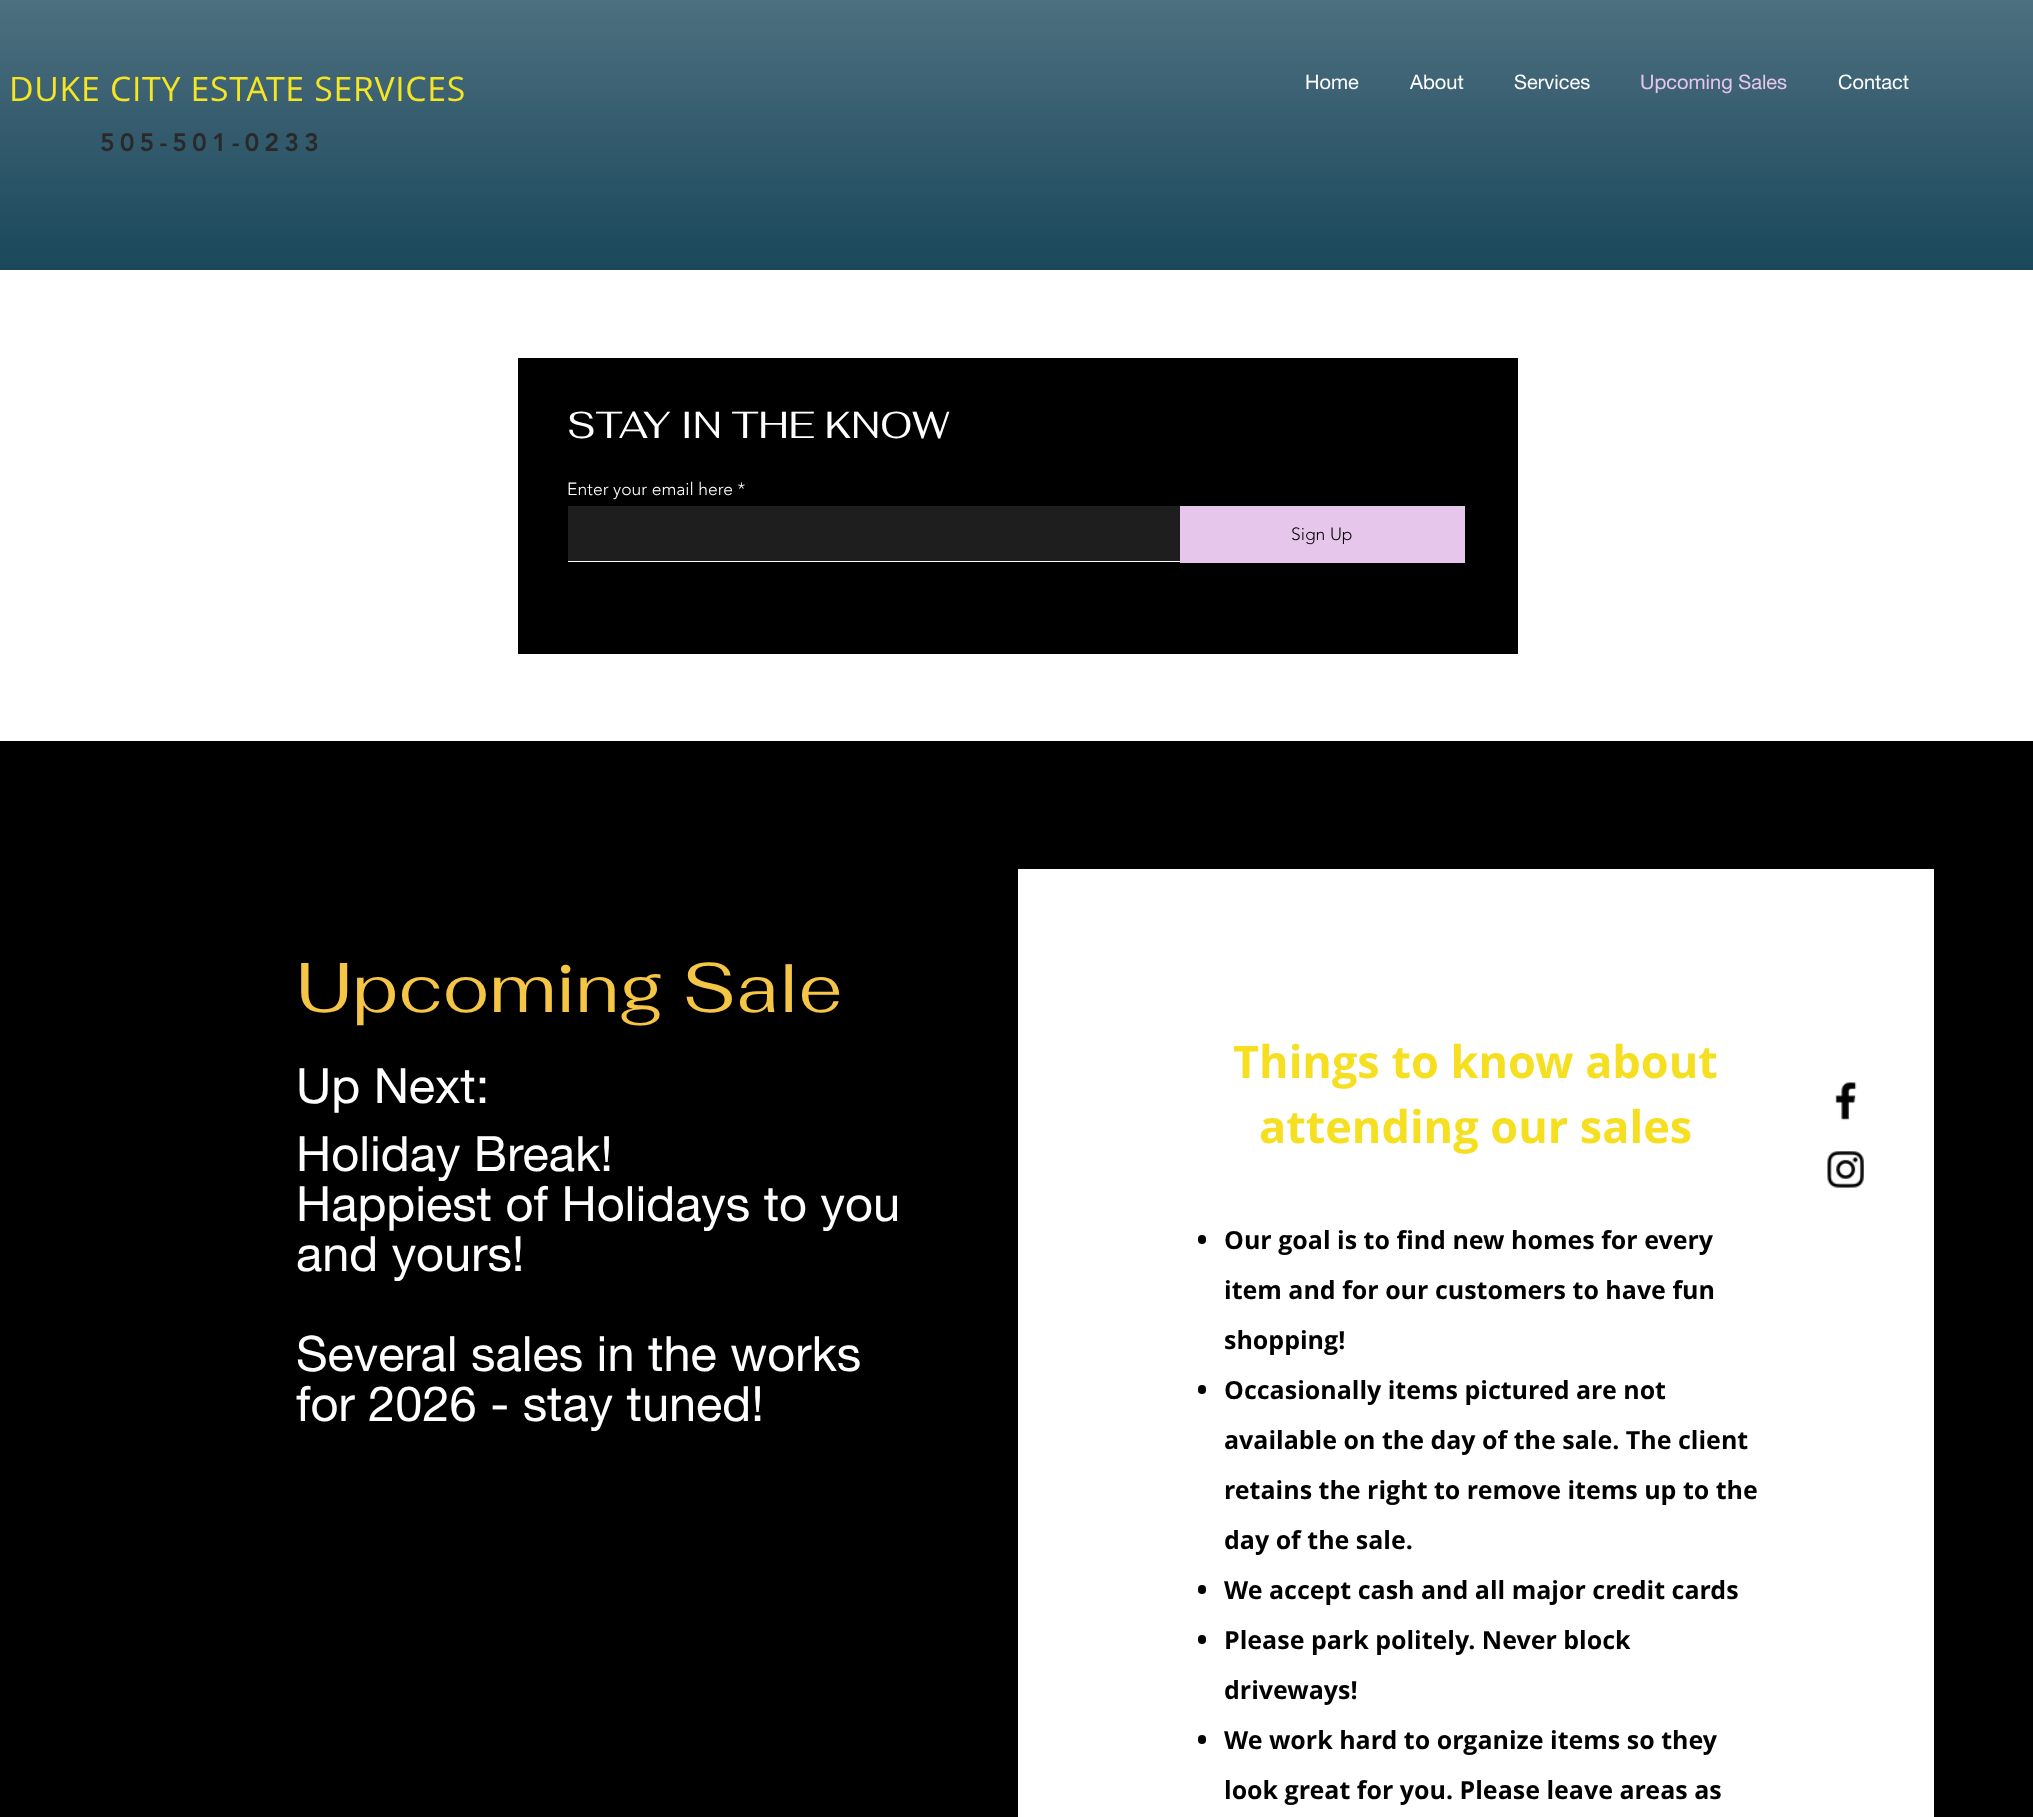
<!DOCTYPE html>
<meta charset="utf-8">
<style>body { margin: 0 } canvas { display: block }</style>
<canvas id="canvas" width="2033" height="1817"></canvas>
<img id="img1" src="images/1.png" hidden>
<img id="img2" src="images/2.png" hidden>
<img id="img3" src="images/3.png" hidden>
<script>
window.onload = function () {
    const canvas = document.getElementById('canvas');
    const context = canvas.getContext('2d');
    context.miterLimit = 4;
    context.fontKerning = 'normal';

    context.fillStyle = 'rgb(0, 0, 0)';
    context.fillRect(0, 0, 2033, 1817);
    context.fillStyle = 'rgb(16, 63, 84)';
    context.fillRect(0, 0, 2033, 270);
    context.drawImage(document.getElementById('img1'), 0, 0, 2033, 270);
    context.fillStyle = 'rgb(255, 255, 255)';
    context.fillRect(0, 270, 2033, 471);
    context.fillStyle = 'rgb(0, 0, 0)';
    context.fillRect(518, 358, 1000, 296);
    context.fillStyle = 'rgb(30, 30, 30)';
    context.fillRect(568, 506, 612, 55);
    context.fillStyle = 'rgb(255, 255, 255)';
    context.fillRect(568, 561, 613, 1);
    context.fillStyle = 'rgb(230, 199, 235)';
    context.fillRect(1180, 506, 285, 57);
    context.fillStyle = 'rgb(255, 255, 255)';
    context.fillRect(1018, 869, 916, 948);
    context.drawImage(document.getElementById('img2'), 1835, 1082, 22, 39);
    context.drawImage(document.getElementById('img3'), 1827, 1151, 37, 37);
    context.fillStyle = 'rgb(0, 0, 0)';
    context.beginPath();
    context.roundRect(1198, 1235, 8, 9, 4);
    context.fill();
    context.beginPath();
    context.roundRect(1198, 1385, 8, 9, 4);
    context.fill();
    context.beginPath();
    context.roundRect(1198, 1585, 8, 9, 4);
    context.fill();
    context.beginPath();
    context.roundRect(1198, 1635, 8, 9, 4);
    context.fill();
    context.beginPath();
    context.roundRect(1198, 1735, 8, 9, 4);
    context.fill();
    context.letterSpacing = '0.7px';
    context.font = '33.75px Open Sans';
    context.fillStyle = 'rgb(245, 229, 34)';
    context.fillText('DUKE CITY ESTATE SERVICES', 9, 101);
    context.letterSpacing = '5px';
    context.font = '900 25px "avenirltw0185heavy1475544"';
    context.fillStyle = 'rgb(41, 41, 41)';
    context.fillText('505-501-0233', 100, 151);
    context.letterSpacing = '0px';
    context.font = '20px helvetica neue';
    context.fillStyle = 'rgb(255, 255, 255)';
    context.fillText('Home', 1305, 89);
    context.fillText('About', 1410, 89);
    context.fillText('Services', 1514, 89);
    context.fillStyle = 'rgb(230, 199, 235)';
    context.fillText('Upcoming Sales', 1640, 89);
    context.fillStyle = 'rgb(255, 255, 255)';
    context.fillText('Contact', 1838, 89);
    context.font = '37.5px Fahkwang';
    context.fillText('STAY IN THE KNOW', 567, 438);
    context.font = '300 17.5px "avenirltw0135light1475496"';
    context.fillText('Enter your email here *', 567, 495);
    context.fillStyle = 'rgb(0, 0, 0)';
    context.fillText('Sign Up', 1291, 540);
    context.font = '70px Fahkwang';
    context.fillStyle = 'rgb(245, 198, 69)';
    context.fillText('Upcoming Sale', 296, 1012);
    context.font = '48.75px helvetica neue';
    context.fillStyle = 'rgb(255, 255, 255)';
    context.fillText('Up Next:', 296, 1103);
    context.fillText('Holiday Break!', 296, 1171);
    context.fillText('Happiest of Holidays to you', 296, 1221);
    context.fillText('and yours!', 296, 1271);
    context.fillText('Several sales in the works', 296, 1371);
    context.fillText('for 2026 - stay tuned!', 296, 1421);
    context.font = 'bold 45px Open Sans';
    context.fillStyle = 'rgb(245, 223, 32)';
    context.fillText('Things to know about', 1233, 1078);
    context.fillText('attending our sales', 1259, 1143);
    context.font = 'bold 25px Open Sans';
    context.fillStyle = 'rgb(0, 0, 0)';
    context.fillText('Our goal is to find new homes for every', 1224, 1249);
    context.fillText('item and for our customers to have fun', 1224, 1299);
    context.fillText('shopping!', 1224, 1349);
    context.fillText('Occasionally items pictured are not', 1224, 1399);
    context.fillText('available on the day of the sale. The client', 1224, 1449);
    context.fillText('retains the right to remove items up to the', 1224, 1499);
    context.fillText('day of the sale.', 1224, 1549);
    context.fillText('We accept cash and all major credit cards', 1224, 1599);
    context.fillText('Please park politely. Never block', 1224, 1649);
    context.fillText('driveways!', 1224, 1699);
    context.fillText('We work hard to organize items so they', 1224, 1749);
    context.fillText('look great for you. Please leave areas as', 1224, 1799);
};
</script>
